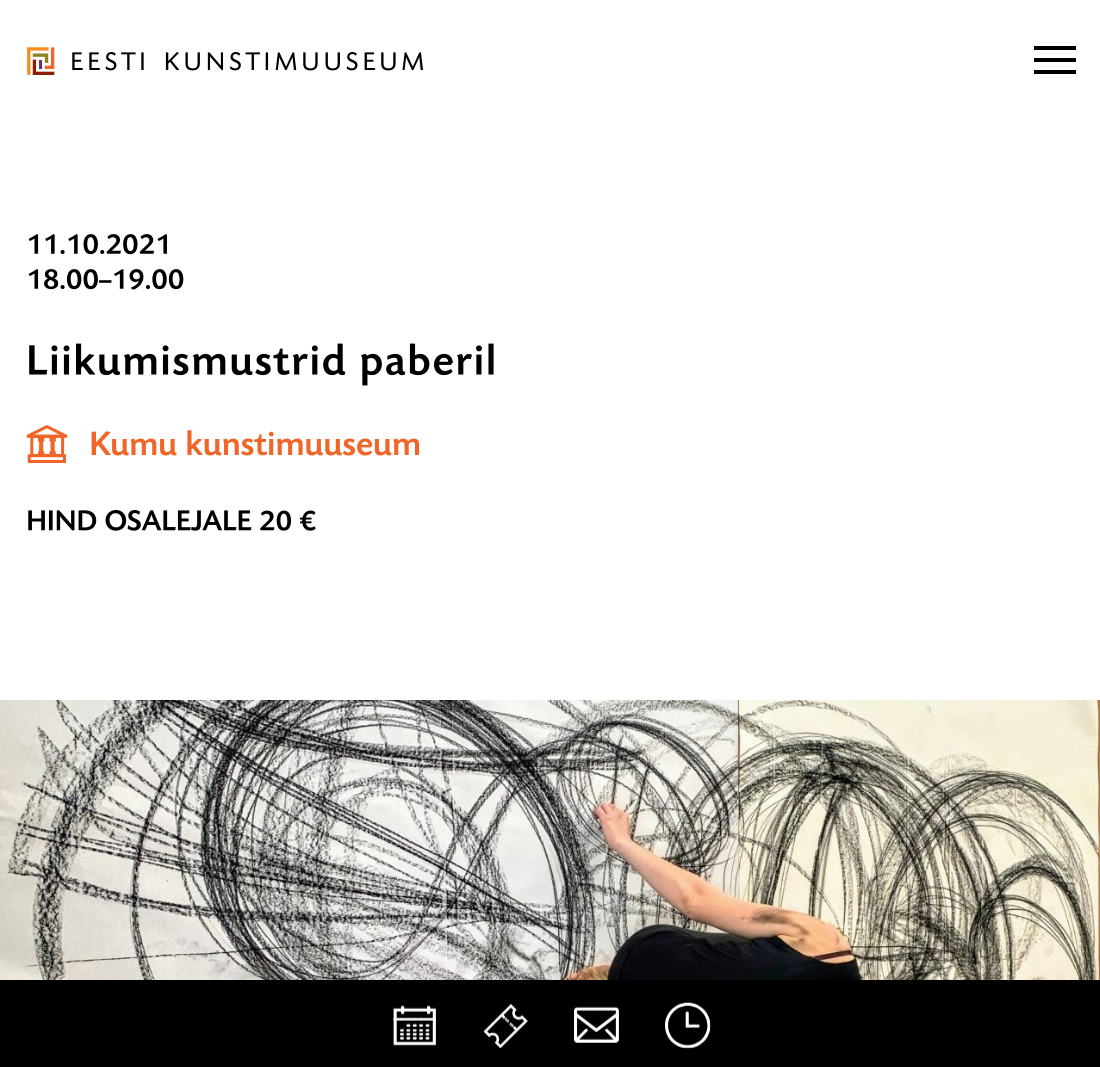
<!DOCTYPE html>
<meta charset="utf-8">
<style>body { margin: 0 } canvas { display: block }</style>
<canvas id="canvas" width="1100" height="1067"></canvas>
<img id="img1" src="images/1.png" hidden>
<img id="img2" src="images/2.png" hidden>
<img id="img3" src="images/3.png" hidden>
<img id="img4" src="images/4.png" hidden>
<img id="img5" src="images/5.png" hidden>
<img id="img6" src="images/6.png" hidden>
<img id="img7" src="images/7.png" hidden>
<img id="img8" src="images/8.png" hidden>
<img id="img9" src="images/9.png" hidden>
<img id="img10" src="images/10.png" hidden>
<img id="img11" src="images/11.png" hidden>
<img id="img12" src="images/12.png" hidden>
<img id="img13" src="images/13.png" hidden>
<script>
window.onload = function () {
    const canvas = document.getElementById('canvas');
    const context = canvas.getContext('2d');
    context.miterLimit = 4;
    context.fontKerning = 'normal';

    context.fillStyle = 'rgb(255, 255, 255)';
    context.fillRect(0, 0, 1100, 1067);
    context.drawImage(document.getElementById('img1'), 27, 47, 396, 28);
    context.fillStyle = 'rgb(0, 0, 0)';
    context.fillRect(1034, 58, 42, 4);
    context.fillRect(1034, 46, 42, 4);
    context.fillRect(1034, 70, 42, 4);
    context.drawImage(document.getElementById('img2'), 28, 234, 139, 21);
    context.drawImage(document.getElementById('img3'), 28, 269, 156, 21);
    context.drawImage(document.getElementById('img4'), 29, 343, 465, 43);
    context.drawImage(document.getElementById('img5'), 26, 425, 42, 38);
    context.drawImage(document.getElementById('img6'), 91, 430, 329, 26);
    context.drawImage(document.getElementById('img7'), 28, 510, 224, 21);
    context.drawImage(document.getElementById('img8'), 260, 510, 56, 21);
    context.drawImage(document.getElementById('img9'), 0, 700, 1100, 280);
    context.fillRect(0, 980, 1100, 87);
    context.drawImage(document.getElementById('img10'), 393, 1005, 43, 41);
    context.drawImage(document.getElementById('img11'), 483, 1003, 45, 46);
    context.drawImage(document.getElementById('img12'), 574, 1006, 45, 37);
    context.drawImage(document.getElementById('img13'), 665, 1002, 46, 47);
};
</script>
